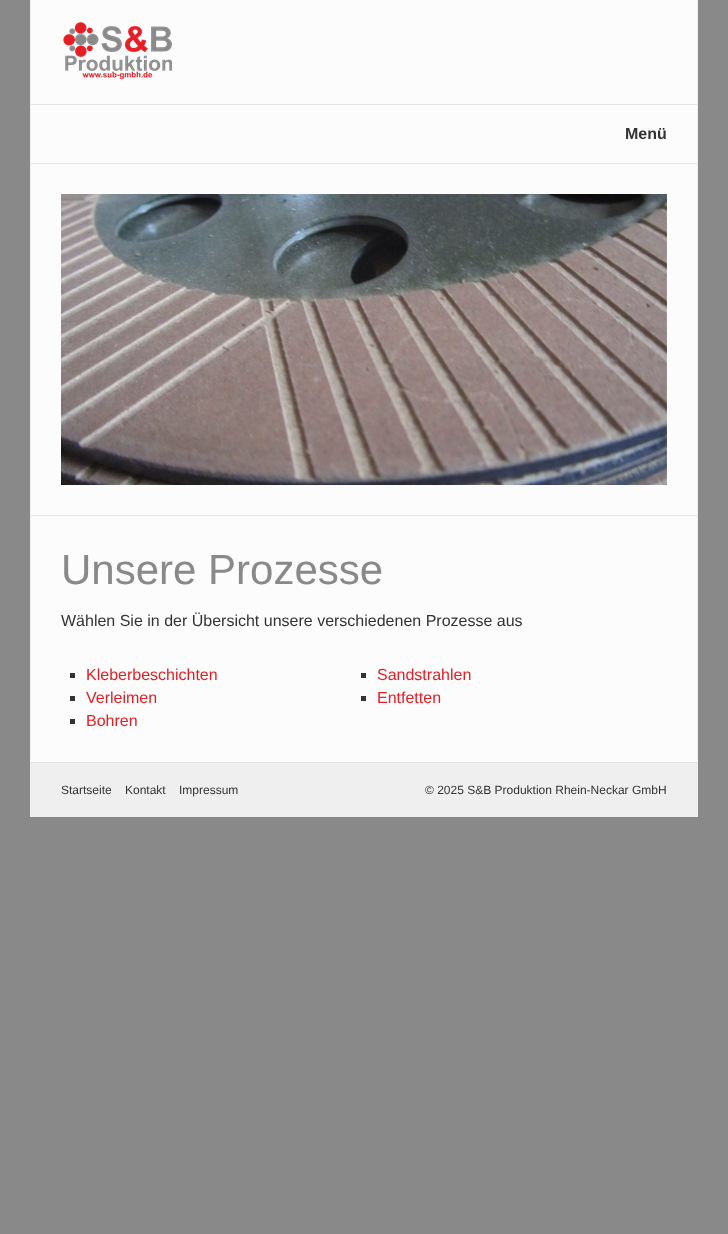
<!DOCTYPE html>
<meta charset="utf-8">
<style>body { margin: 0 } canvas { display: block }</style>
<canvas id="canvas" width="728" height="1234"></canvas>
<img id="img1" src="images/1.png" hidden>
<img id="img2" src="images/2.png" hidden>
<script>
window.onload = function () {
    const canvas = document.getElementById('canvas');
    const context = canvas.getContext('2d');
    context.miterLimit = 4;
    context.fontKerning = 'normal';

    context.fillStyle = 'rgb(137, 137, 137)';
    context.fillRect(0, 0, 728, 1234);
    context.fillStyle = 'rgb(239, 239, 239)';
    context.fillRect(697, 0, 1, 817);
    context.fillRect(30, 0, 1, 817);
    context.fillStyle = 'rgb(252, 252, 252)';
    context.fillRect(31, 0, 666, 104);
    context.fillStyle = 'rgb(227, 227, 227)';
    context.fillRect(31, 104, 666, 1);
    context.drawImage(document.getElementById('img1'), 63, 22, 109, 58);
    context.fillStyle = 'rgb(252, 252, 252)';
    context.fillRect(31, 105, 666, 58);
    context.fillStyle = 'rgb(227, 227, 227)';
    context.fillRect(31, 163, 666, 1);
    context.fillStyle = 'rgb(252, 252, 252)';
    context.fillRect(31, 164, 666, 351);
    context.fillStyle = 'rgb(227, 227, 227)';
    context.fillRect(31, 515, 666, 1);
    context.drawImage(document.getElementById('img2'), 61, 194, 606, 291);
    context.fillStyle = 'rgb(252, 252, 252)';
    context.fillRect(31, 516, 666, 246);
    context.fillStyle = 'rgb(227, 227, 227)';
    context.fillRect(31, 762, 666, 1);
    context.fillStyle = 'rgb(51, 51, 51)';
    context.fillRect(70, 673, 5, 5);
    context.fillRect(361, 673, 5, 5);
    context.fillRect(70, 696, 5, 5);
    context.fillRect(361, 696, 5, 5);
    context.fillRect(70, 719, 5, 5);
    context.fillStyle = 'rgb(239, 239, 239)';
    context.fillRect(31, 763, 666, 54);
    context.font = 'bold 16px Liberation Sans';
    context.fillStyle = 'rgb(51, 51, 51)';
    context.fillText('Menü', 625, 139);
    context.font = '42px Liberation Sans';
    context.fillStyle = 'rgb(137, 137, 137)';
    context.fillText('Unsere Prozesse', 61, 584);
    context.font = '16px Liberation Sans';
    context.fillStyle = 'rgb(51, 51, 51)';
    context.fillText('Wählen Sie in der Übersicht unsere verschiedenen Prozesse aus', 61, 626);
    context.fillStyle = 'rgb(227, 30, 36)';
    context.fillText('Kleberbeschichten', 86, 680);
    context.fillText('Sandstrahlen', 377, 680);
    context.fillText('Verleimen', 86, 703);
    context.fillText('Entfetten', 377, 703);
    context.fillText('Bohren', 86, 726);
    context.font = '12px Liberation Sans';
    context.fillStyle = 'rgb(51, 51, 51)';
    context.fillText('Startseite', 61, 794);
    context.fillText('Kontakt', 125, 794);
    context.fillText('Impressum', 179, 794);
    context.fillText('© 2025 S&B Produktion Rhein-Neckar GmbH', 425, 794);
};
</script>
